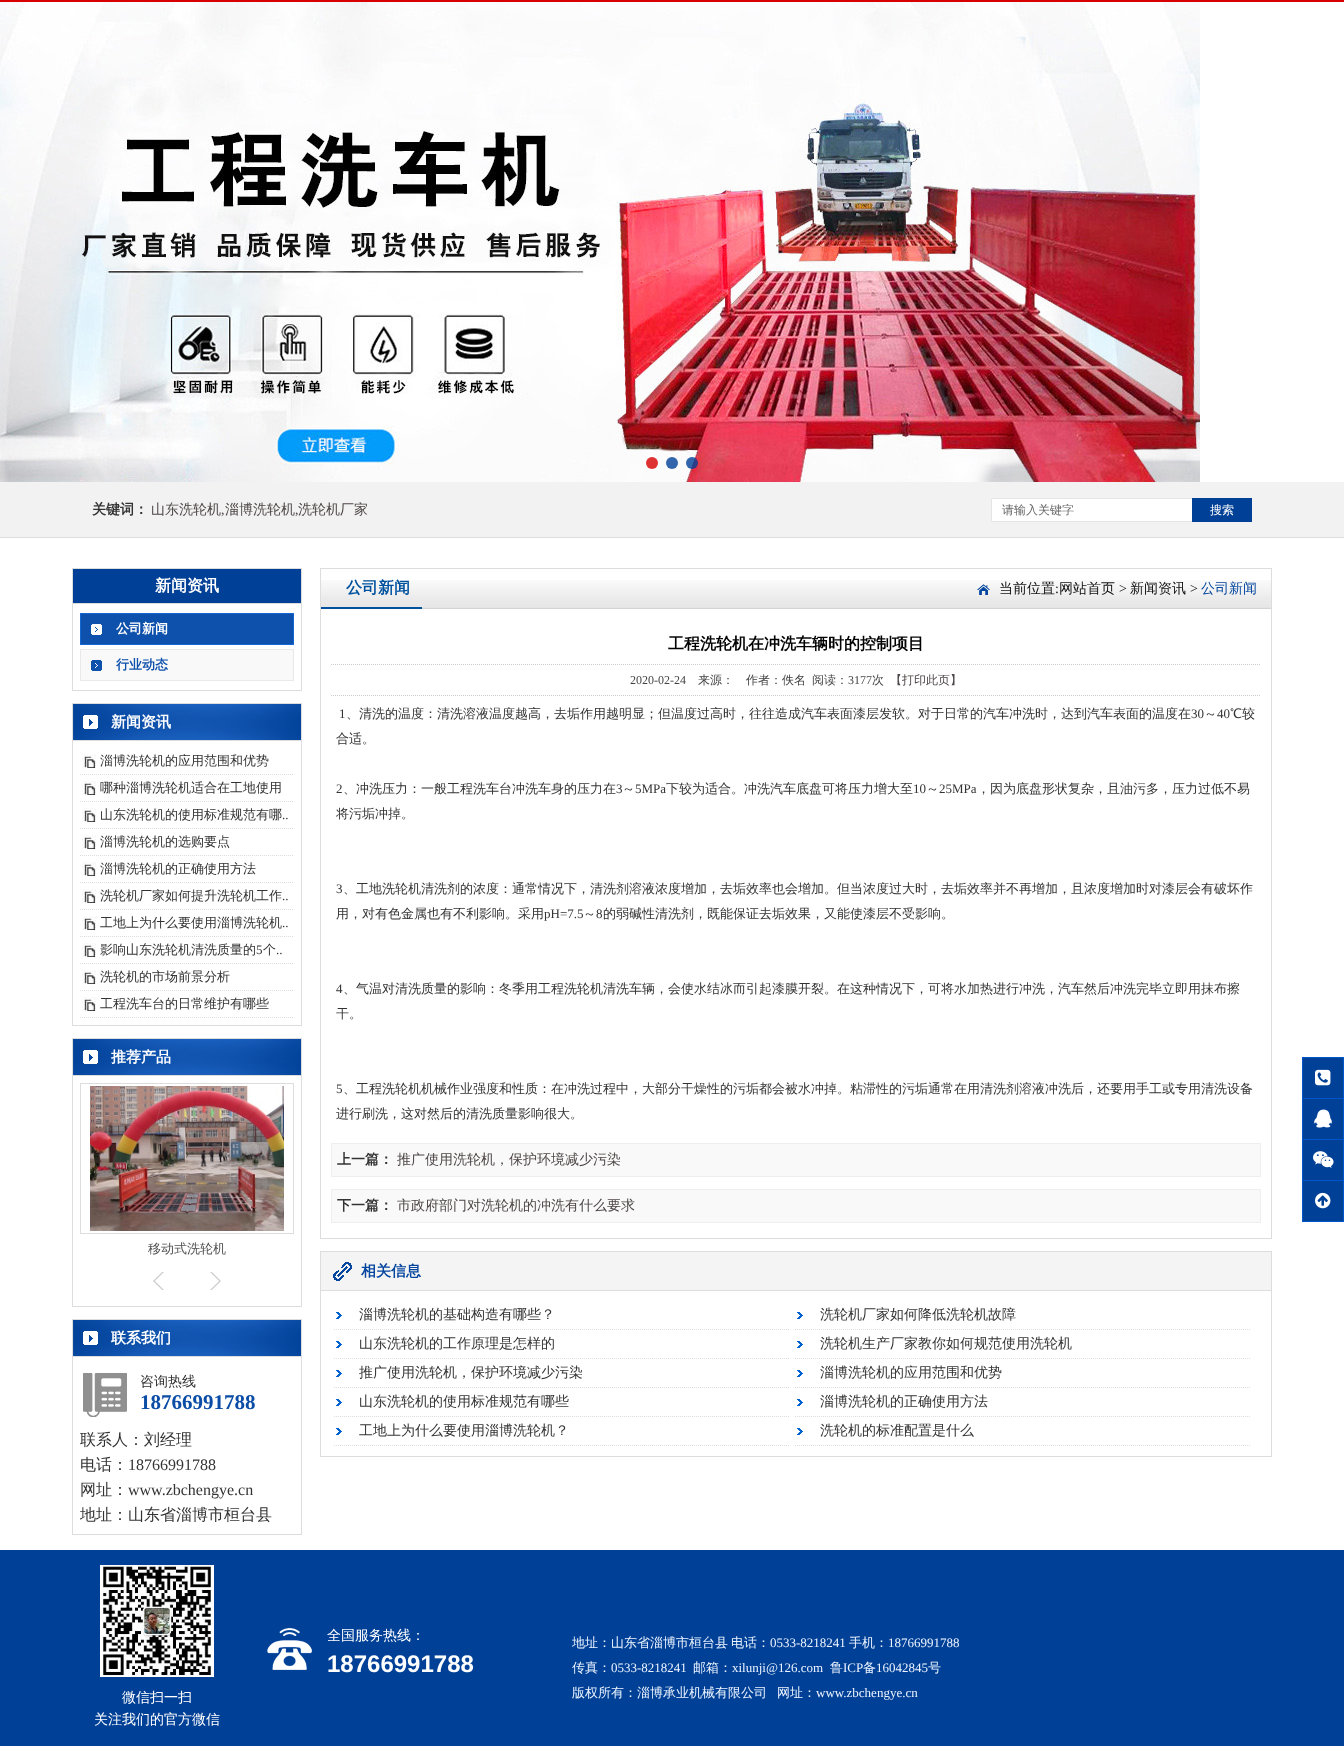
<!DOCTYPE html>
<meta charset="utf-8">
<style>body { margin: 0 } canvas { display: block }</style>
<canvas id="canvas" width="1344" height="1746"></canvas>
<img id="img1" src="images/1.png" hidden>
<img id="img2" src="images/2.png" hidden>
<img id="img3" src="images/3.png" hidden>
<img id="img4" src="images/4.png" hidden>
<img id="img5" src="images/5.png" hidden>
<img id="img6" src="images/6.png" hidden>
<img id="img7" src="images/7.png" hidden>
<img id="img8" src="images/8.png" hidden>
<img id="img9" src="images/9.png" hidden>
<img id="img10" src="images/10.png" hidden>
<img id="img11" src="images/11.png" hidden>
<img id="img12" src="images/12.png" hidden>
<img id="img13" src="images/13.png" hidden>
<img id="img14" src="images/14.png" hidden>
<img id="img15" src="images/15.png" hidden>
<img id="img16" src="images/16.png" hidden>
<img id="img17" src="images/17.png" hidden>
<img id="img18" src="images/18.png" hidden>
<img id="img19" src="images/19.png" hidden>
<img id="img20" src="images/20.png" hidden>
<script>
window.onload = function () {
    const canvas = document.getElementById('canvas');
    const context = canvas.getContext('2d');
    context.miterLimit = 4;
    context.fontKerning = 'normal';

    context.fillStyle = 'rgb(255, 255, 255)';
    context.fillRect(0, 0, 1344, 1746);
    context.fillStyle = 'rgb(216, 0, 1)';
    context.fillRect(0, 0, 1344, 2);
    context.drawImage(document.getElementById('img1'), 0, 2, 1200, 480);
    context.fillStyle = 'rgb(223, 50, 50)';
    context.beginPath();
    context.arc(652, 463, 6, 0, 2 * Math.PI);
    context.fill();
    context.fillStyle = 'rgba(0, 64, 151, 0.8)';
    context.beginPath();
    context.arc(672, 463, 6, 0, 2 * Math.PI);
    context.fill();
    context.beginPath();
    context.arc(692, 463, 6, 0, 2 * Math.PI);
    context.fill();
    context.fillStyle = 'rgb(242, 242, 242)';
    context.fillRect(0, 482, 1344, 55);
    context.fillStyle = 'rgb(221, 221, 221)';
    context.fillRect(0, 537, 1344, 1);
    context.fillStyle = 'rgb(255, 255, 255)';
    context.beginPath();
    context.rect(991.5, 498.5, 201, 23);
    context.fill();
    context.strokeStyle = 'rgb(229, 229, 229)';
    context.stroke();
    context.fillStyle = 'rgb(0, 64, 151)';
    context.fillRect(1192, 498, 60, 24);
    context.fillRect(73, 569, 228, 34);
    context.fillStyle = 'rgb(221, 221, 221)';
    context.fillRect(72, 568, 230, 1);
    context.fillRect(301, 568, 1, 35);
    context.fillRect(72, 568, 1, 35);
    context.strokeStyle = 'rgb(221, 221, 221)';
    context.strokeRect(72.5, 603.5, 229, 87);
    context.fillStyle = 'rgb(14, 81, 172)';
    context.fillRect(81, 614, 212, 30);
    context.drawImage(document.getElementById('img2'), 91, 624, 11, 11);
    context.strokeStyle = 'rgb(20, 102, 211)';
    context.strokeRect(80.5, 613.5, 213, 31);
    context.fillStyle = 'rgb(249, 249, 249)';
    context.fillRect(81, 650, 212, 30);
    context.drawImage(document.getElementById('img3'), 91, 660, 11, 11);
    context.strokeStyle = 'rgb(233, 233, 233)';
    context.strokeRect(80.5, 649.5, 213, 31);
    context.drawImage(document.getElementById('img4'), 73, 704, 228, 36);
    context.strokeStyle = 'rgb(221, 221, 221)';
    context.strokeRect(72.5, 703.5, 229, 37);
    context.drawImage(document.getElementById('img5'), 83, 715, 15, 14);
    context.fillStyle = 'rgb(221, 221, 221)';
    context.fillRect(301, 741, 1, 285);
    context.fillRect(72, 1025, 230, 1);
    context.fillRect(72, 741, 1, 285);
    context.drawImage(document.getElementById('img6'), 82, 754, 14, 14);
    context.beginPath();
    context.moveTo(80, 774.5);
    context.lineTo(294, 774.5);
    context.setLineDash([1, 1]);
    context.stroke();
    context.drawImage(document.getElementById('img6'), 82, 781, 14, 14);
    context.beginPath();
    context.moveTo(80, 801.5);
    context.lineTo(294, 801.5);
    context.stroke();
    context.drawImage(document.getElementById('img6'), 82, 808, 14, 14);
    context.beginPath();
    context.moveTo(80, 828.5);
    context.lineTo(294, 828.5);
    context.stroke();
    context.drawImage(document.getElementById('img6'), 82, 835, 14, 14);
    context.beginPath();
    context.moveTo(80, 855.5);
    context.lineTo(294, 855.5);
    context.stroke();
    context.drawImage(document.getElementById('img6'), 82, 862, 14, 14);
    context.beginPath();
    context.moveTo(80, 882.5);
    context.lineTo(294, 882.5);
    context.stroke();
    context.drawImage(document.getElementById('img6'), 82, 889, 14, 14);
    context.beginPath();
    context.moveTo(80, 909.5);
    context.lineTo(294, 909.5);
    context.stroke();
    context.drawImage(document.getElementById('img6'), 82, 916, 14, 14);
    context.beginPath();
    context.moveTo(80, 936.5);
    context.lineTo(294, 936.5);
    context.stroke();
    context.drawImage(document.getElementById('img6'), 82, 943, 14, 14);
    context.beginPath();
    context.moveTo(80, 963.5);
    context.lineTo(294, 963.5);
    context.stroke();
    context.drawImage(document.getElementById('img6'), 82, 970, 14, 14);
    context.beginPath();
    context.moveTo(80, 990.5);
    context.lineTo(294, 990.5);
    context.stroke();
    context.drawImage(document.getElementById('img6'), 82, 997, 14, 14);
    context.beginPath();
    context.moveTo(80, 1017.5);
    context.lineTo(294, 1017.5);
    context.stroke();
    context.drawImage(document.getElementById('img4'), 73, 1039, 228, 36);
    context.setLineDash([]);
    context.strokeRect(72.5, 1038.5, 229, 37);
    context.drawImage(document.getElementById('img5'), 83, 1050, 15, 14);
    context.fillRect(301, 1076, 1, 231);
    context.fillRect(72, 1306, 230, 1);
    context.fillRect(72, 1076, 1, 231);
    context.strokeRect(80.5, 1083.5, 213, 150);
    context.drawImage(document.getElementById('img7'), 90, 1086, 194, 145);
    context.drawImage(document.getElementById('img8'), 153, 1272, 11, 18);
    context.drawImage(document.getElementById('img9'), 210, 1272, 11, 18);
    context.drawImage(document.getElementById('img4'), 73, 1320, 228, 36);
    context.strokeRect(72.5, 1319.5, 229, 37);
    context.drawImage(document.getElementById('img5'), 83, 1331, 15, 14);
    context.fillRect(301, 1357, 1, 178);
    context.fillRect(72, 1534, 230, 1);
    context.fillRect(72, 1357, 1, 178);
    context.drawImage(document.getElementById('img10'), 83, 1373, 44, 44);
    context.drawImage(document.getElementById('img11'), 321, 580, 950, 29);
    context.fillRect(320, 568, 952, 1);
    context.fillRect(1271, 568, 1, 671);
    context.fillRect(320, 568, 1, 41);
    context.fillStyle = 'rgb(1, 82, 158)';
    context.fillRect(321, 607, 101, 2);
    context.drawImage(document.getElementById('img12'), 977, 584, 13, 11);
    context.fillStyle = 'rgb(221, 221, 221)';
    context.fillRect(320, 1238, 952, 1);
    context.fillRect(320, 609, 1, 630);
    context.beginPath();
    context.moveTo(331, 664.5);
    context.lineTo(1261, 664.5);
    context.strokeStyle = 'rgb(204, 204, 204)';
    context.setLineDash([1, 1]);
    context.stroke();
    context.beginPath();
    context.moveTo(331, 695.5);
    context.lineTo(1261, 695.5);
    context.stroke();
    context.fillStyle = 'rgb(249, 249, 249)';
    context.beginPath();
    context.rect(331.5, 1143.5, 929, 33);
    context.fill();
    context.strokeStyle = 'rgb(238, 238, 238)';
    context.setLineDash([]);
    context.stroke();
    context.beginPath();
    context.rect(331.5, 1189.5, 929, 33);
    context.fill();
    context.stroke();
    context.strokeStyle = 'rgb(221, 221, 221)';
    context.strokeRect(320.5, 1251.5, 951, 205);
    context.fillStyle = 'rgb(244, 244, 244)';
    context.fillRect(321, 1252, 950, 38);
    context.fillStyle = 'rgb(221, 221, 221)';
    context.fillRect(321, 1290, 950, 1);
    context.drawImage(document.getElementById('img13'), 333, 1262, 19, 19);
    context.drawImage(document.getElementById('img14'), 336, 1312, 6, 7);
    context.beginPath();
    context.moveTo(334, 1329.5);
    context.lineTo(789, 1329.5);
    context.setLineDash([1, 1]);
    context.stroke();
    context.drawImage(document.getElementById('img14'), 797, 1312, 6, 7);
    context.beginPath();
    context.moveTo(795, 1329.5);
    context.lineTo(1250, 1329.5);
    context.stroke();
    context.drawImage(document.getElementById('img14'), 336, 1341, 6, 7);
    context.beginPath();
    context.moveTo(334, 1358.5);
    context.lineTo(789, 1358.5);
    context.stroke();
    context.drawImage(document.getElementById('img14'), 797, 1341, 6, 7);
    context.beginPath();
    context.moveTo(795, 1358.5);
    context.lineTo(1250, 1358.5);
    context.stroke();
    context.drawImage(document.getElementById('img14'), 336, 1370, 6, 7);
    context.beginPath();
    context.moveTo(334, 1387.5);
    context.lineTo(789, 1387.5);
    context.stroke();
    context.drawImage(document.getElementById('img14'), 797, 1370, 6, 7);
    context.beginPath();
    context.moveTo(795, 1387.5);
    context.lineTo(1250, 1387.5);
    context.stroke();
    context.drawImage(document.getElementById('img14'), 336, 1399, 6, 7);
    context.beginPath();
    context.moveTo(334, 1416.5);
    context.lineTo(789, 1416.5);
    context.stroke();
    context.drawImage(document.getElementById('img14'), 797, 1399, 6, 7);
    context.beginPath();
    context.moveTo(795, 1416.5);
    context.lineTo(1250, 1416.5);
    context.stroke();
    context.drawImage(document.getElementById('img14'), 336, 1428, 6, 7);
    context.beginPath();
    context.moveTo(334, 1445.5);
    context.lineTo(789, 1445.5);
    context.stroke();
    context.drawImage(document.getElementById('img14'), 797, 1428, 6, 7);
    context.beginPath();
    context.moveTo(795, 1445.5);
    context.lineTo(1250, 1445.5);
    context.stroke();
    context.fillStyle = 'rgb(0, 64, 151)';
    context.fillRect(1303, 1058, 40, 163);
    context.strokeStyle = 'rgb(0, 87, 204)';
    context.setLineDash([]);
    context.strokeRect(1302.5, 1057.5, 41, 41);
    context.drawImage(document.getElementById('img15'), 1315, 1069, 16, 17);
    context.strokeRect(1302.5, 1098.5, 41, 41);
    context.drawImage(document.getElementById('img16'), 1314, 1109, 18, 19);
    context.strokeRect(1302.5, 1139.5, 41, 41);
    context.drawImage(document.getElementById('img17'), 1313, 1151, 21, 17);
    context.strokeRect(1302.5, 1180.5, 41, 41);
    context.drawImage(document.getElementById('img18'), 1315, 1192, 16, 17);
    context.fillRect(0, 1550, 1344, 196);
    context.drawImage(document.getElementById('img19'), 267, 1628, 45, 42);
    context.drawImage(document.getElementById('img20'), 100, 1565, 114, 112);
    context.font = 'bold 14px WenQuanYi Zen Hei';
    context.fillStyle = 'rgb(51, 51, 51)';
    context.fillText('关键词：', 92, 514);
    context.font = '500 14px WenQuanYi Zen Hei';
    context.fillStyle = 'rgb(78, 70, 70)';
    context.fillText('山东洗轮机', 151, 514);
    context.font = '14px Liberation Serif';
    context.fillText(',', 221, 514);
    context.font = '500 14px WenQuanYi Zen Hei';
    context.fillText('淄博洗轮机', 225, 514);
    context.font = '14px Liberation Serif';
    context.fillText(',', 295, 514);
    context.font = '500 14px WenQuanYi Zen Hei';
    context.fillText('洗轮机厂家', 298, 514);
    context.font = '500 12px WenQuanYi Zen Hei';
    context.fillStyle = 'rgb(102, 102, 102)';
    context.fillText('请输入关键字', 1002, 514);
    context.fillStyle = 'rgb(255, 255, 255)';
    context.fillText('搜索', 1210, 514);
    context.font = 'bold 16px WenQuanYi Zen Hei';
    context.fillText('新闻资讯', 155, 591);
    context.font = 'bold 13px WenQuanYi Zen Hei';
    context.fillText('公司新闻', 116, 633);
    context.fillStyle = 'rgb(14, 81, 172)';
    context.fillText('行业动态', 116, 669);
    context.font = 'bold 15px WenQuanYi Zen Hei';
    context.fillStyle = 'rgb(255, 255, 255)';
    context.fillText('新闻资讯', 111, 727);
    context.font = '500 13px WenQuanYi Zen Hei';
    context.fillStyle = 'rgb(51, 51, 51)';
    context.fillText('淄博洗轮机的应用范围和优势', 100, 765);
    context.fillText('哪种淄博洗轮机适合在工地使用', 100, 792);
    context.fillText('山东洗轮机的使用标准规范有哪', 100, 819);
    context.font = '13px Liberation Serif';
    context.fillText('..', 282, 819);
    context.font = '500 13px WenQuanYi Zen Hei';
    context.fillText('淄博洗轮机的选购要点', 100, 846);
    context.fillText('淄博洗轮机的正确使用方法', 100, 873);
    context.fillText('洗轮机厂家如何提升洗轮机工作', 100, 900);
    context.font = '13px Liberation Serif';
    context.fillText('..', 282, 900);
    context.font = '500 13px WenQuanYi Zen Hei';
    context.fillText('工地上为什么要使用淄博洗轮机', 100, 927);
    context.font = '13px Liberation Serif';
    context.fillText('..', 282, 927);
    context.font = '500 13px WenQuanYi Zen Hei';
    context.fillText('影响山东洗轮机清洗质量的', 100, 954);
    context.font = '13px Liberation Serif';
    context.fillText('5', 256, 954);
    context.font = '500 13px WenQuanYi Zen Hei';
    context.fillText('个', 263, 954);
    context.font = '13px Liberation Serif';
    context.fillText('..', 276, 954);
    context.font = '500 13px WenQuanYi Zen Hei';
    context.fillText('洗轮机的市场前景分析', 100, 981);
    context.fillText('工程洗车台的日常维护有哪些', 100, 1008);
    context.font = 'bold 15px WenQuanYi Zen Hei';
    context.fillStyle = 'rgb(255, 255, 255)';
    context.fillText('推荐产品', 111, 1062);
    context.font = '500 13px WenQuanYi Zen Hei';
    context.fillStyle = 'rgb(82, 82, 82)';
    context.fillText('移动式洗轮机', 148, 1253);
    context.font = 'bold 15px WenQuanYi Zen Hei';
    context.fillStyle = 'rgb(255, 255, 255)';
    context.fillText('联系我们', 111, 1343);
    context.font = '500 14px WenQuanYi Zen Hei';
    context.fillStyle = 'rgb(51, 51, 51)';
    context.fillText('咨询热线', 140, 1386);
    context.font = 'bold 21px Liberation Serif';
    context.fillStyle = 'rgb(10, 76, 166)';
    context.fillText('18766991788', 140, 1409);
    context.font = '500 16px WenQuanYi Zen Hei';
    context.fillStyle = 'rgb(51, 51, 51)';
    context.fillText('联系人：刘经理', 80, 1445);
    context.fillText('电话：', 80, 1470);
    context.font = '16px Liberation Serif';
    context.fillText('18766991788', 128, 1470);
    context.font = '500 16px WenQuanYi Zen Hei';
    context.fillText('网址：', 80, 1495);
    context.font = '16px Liberation Serif';
    context.fillText('www.zbchengye.cn', 128, 1495);
    context.font = '500 16px WenQuanYi Zen Hei';
    context.fillText('地址：山东省淄博市桓台县', 80, 1520);
    context.font = 'bold 16px WenQuanYi Zen Hei';
    context.fillStyle = 'rgb(1, 82, 158)';
    context.fillText('公司新闻', 346, 593);
    context.font = '500 14px WenQuanYi Zen Hei';
    context.fillStyle = 'rgb(17, 17, 17)';
    context.fillText('当前位置', 999, 593);
    context.font = '14px Liberation Serif';
    context.fillText(':', 1055, 593);
    context.font = '500 14px WenQuanYi Zen Hei';
    context.fillText('网站首页', 1059, 593);
    context.font = '14px Liberation Serif';
    context.fillText('>', 1119, 593);
    context.font = '500 14px WenQuanYi Zen Hei';
    context.fillText('新闻资讯', 1130, 593);
    context.font = '14px Liberation Serif';
    context.fillText('>', 1190, 593);
    context.font = '500 14px WenQuanYi Zen Hei';
    context.fillStyle = 'rgb(5, 70, 158)';
    context.fillText('公司新闻', 1201, 593);
    context.font = 'bold 16px WenQuanYi Zen Hei';
    context.fillStyle = 'rgb(1, 1, 1)';
    context.fillText('工程洗轮机在冲洗车辆时的控制项目', 668, 649);
    context.font = '12px Liberation Serif';
    context.fillStyle = 'rgb(68, 68, 68)';
    context.fillText('2020-02-24', 630, 684);
    context.font = '500 12px WenQuanYi Zen Hei';
    context.fillText('来源：', 698, 684);
    context.fillText('作者：佚名', 746, 684);
    context.fillText('阅读：', 812, 684);
    context.font = '12px Liberation Serif';
    context.fillText('3177', 848, 684);
    context.font = '500 12px WenQuanYi Zen Hei';
    context.fillText('次', 872, 684);
    context.fillStyle = 'rgb(78, 70, 70)';
    context.fillText('【打印此页】', 890, 684);
    context.font = '13px Liberation Serif';
    context.fillStyle = 'rgb(51, 51, 51)';
    context.fillText('1', 339, 718);
    context.font = '500 13px WenQuanYi Zen Hei';
    context.fillText('、清洗的温度：清洗溶液温度越高，去垢作用越明显；但温度过高时，往往造成汽车表面漆层发软。对于日常的汽车冲洗时，达到汽车表面的温度在', 346, 718);
    context.font = '13px Liberation Serif';
    context.fillText('30', 1191, 718);
    context.font = '500 13px WenQuanYi Zen Hei';
    context.fillText('～', 1204, 718);
    context.font = '13px Liberation Serif';
    context.fillText('40', 1217, 718);
    context.font = '500 13px WenQuanYi Zen Hei';
    context.fillText('℃较', 1230, 718);
    context.fillText('合适。', 336, 743);
    context.font = '13px Liberation Serif';
    context.fillText('2', 336, 793);
    context.font = '500 13px WenQuanYi Zen Hei';
    context.fillText('、冲洗压力：一般工程洗车台冲洗车身的压力在', 343, 793);
    context.font = '13px Liberation Serif';
    context.fillText('3', 616, 793);
    context.font = '500 13px WenQuanYi Zen Hei';
    context.fillText('～', 622, 793);
    context.font = '13px Liberation Serif';
    context.fillText('5MPa', 635, 793);
    context.font = '500 13px WenQuanYi Zen Hei';
    context.fillText('下较为适合。冲洗汽车底盘可将压力增大至', 666, 793);
    context.font = '13px Liberation Serif';
    context.fillText('10', 913, 793);
    context.font = '500 13px WenQuanYi Zen Hei';
    context.fillText('～', 926, 793);
    context.font = '13px Liberation Serif';
    context.fillText('25MPa', 939, 793);
    context.font = '500 13px WenQuanYi Zen Hei';
    context.fillText('，因为底盘形状复杂，且油污多，压力过低不易', 977, 793);
    context.fillText('将污垢冲掉。', 336, 818);
    context.font = '13px Liberation Serif';
    context.fillText('3', 336, 893);
    context.font = '500 13px WenQuanYi Zen Hei';
    context.fillText('、工地洗轮机清洗剂的浓度：通常情况下，清洗剂溶液浓度增加，去垢效率也会增加。但当浓度过大时，去垢效率并不再增加，且浓度增加时对漆层会有破坏作', 343, 893);
    context.fillText('用，对有色金属也有不利影响。采用', 336, 918);
    context.font = '13px Liberation Serif';
    context.fillText('pH=7.5', 544, 918);
    context.font = '500 13px WenQuanYi Zen Hei';
    context.fillText('～', 583, 918);
    context.font = '13px Liberation Serif';
    context.fillText('8', 596, 918);
    context.font = '500 13px WenQuanYi Zen Hei';
    context.fillText('的弱碱性清洗剂，既能保证去垢效果，又能使漆层不受影响。', 603, 918);
    context.font = '13px Liberation Serif';
    context.fillText('4', 336, 993);
    context.font = '500 13px WenQuanYi Zen Hei';
    context.fillText('、气温对清洗质量的影响：冬季用工程洗轮机清洗车辆，会使水结冰而引起漆膜开裂。在这种情况下，可将水加热进行冲洗，汽车然后冲洗完毕立即用抹布擦', 343, 993);
    context.fillText('干。', 336, 1018);
    context.font = '13px Liberation Serif';
    context.fillText('5', 336, 1093);
    context.font = '500 13px WenQuanYi Zen Hei';
    context.fillText('、工程洗轮机机械作业强度和性质：在冲洗过程中，大部分干燥性的污垢都会被水冲掉。粘滞性的污垢通常在用清洗剂溶液冲洗后，还要用手工或专用清洗设备', 343, 1093);
    context.fillText('进行刷洗，这对然后的清洗质量影响很大。', 336, 1118);
    context.font = 'bold 14px WenQuanYi Zen Hei';
    context.fillText('上一篇：', 337, 1164);
    context.font = '500 14px WenQuanYi Zen Hei';
    context.fillStyle = 'rgb(78, 70, 70)';
    context.fillText('推广使用洗轮机，保护环境减少污染', 397, 1164);
    context.font = 'bold 14px WenQuanYi Zen Hei';
    context.fillStyle = 'rgb(51, 51, 51)';
    context.fillText('下一篇：', 337, 1210);
    context.font = '500 14px WenQuanYi Zen Hei';
    context.fillStyle = 'rgb(78, 70, 70)';
    context.fillText('市政府部门对洗轮机的冲洗有什么要求', 397, 1210);
    context.font = 'bold 15px WenQuanYi Zen Hei';
    context.fillStyle = 'rgb(5, 70, 158)';
    context.fillText('相关信息', 361, 1276);
    context.font = '500 14px WenQuanYi Zen Hei';
    context.fillStyle = 'rgb(51, 51, 51)';
    context.fillText('淄博洗轮机的基础构造有哪些？', 359, 1319);
    context.fillText('洗轮机厂家如何降低洗轮机故障', 820, 1319);
    context.fillText('山东洗轮机的工作原理是怎样的', 359, 1348);
    context.fillText('洗轮机生产厂家教你如何规范使用洗轮机', 820, 1348);
    context.fillText('推广使用洗轮机，保护环境减少污染', 359, 1377);
    context.fillText('淄博洗轮机的应用范围和优势', 820, 1377);
    context.fillText('山东洗轮机的使用标准规范有哪些', 359, 1406);
    context.fillText('淄博洗轮机的正确使用方法', 820, 1406);
    context.fillText('工地上为什么要使用淄博洗轮机？', 359, 1435);
    context.fillText('洗轮机的标准配置是什么', 820, 1435);
    context.fillStyle = 'rgb(255, 255, 255)';
    context.fillText('全国服务热线：', 327, 1640);
    context.font = 'bold 24px Liberation Sans';
    context.fillText('18766991788', 327, 1672);
    context.font = '500 13px WenQuanYi Zen Hei';
    context.fillStyle = 'rgb(236, 244, 255)';
    context.fillText('地址：山东省淄博市桓台县', 572, 1647);
    context.fillText('电话：', 731, 1647);
    context.font = '13px Liberation Serif';
    context.fillText('0533-8218241', 770, 1647);
    context.font = '500 13px WenQuanYi Zen Hei';
    context.fillText('手机：', 849, 1647);
    context.font = '13px Liberation Serif';
    context.fillText('18766991788', 888, 1647);
    context.font = '500 13px WenQuanYi Zen Hei';
    context.fillText('传真：', 572, 1672);
    context.font = '13px Liberation Serif';
    context.fillText('0533-8218241', 611, 1672);
    context.font = '500 13px WenQuanYi Zen Hei';
    context.fillText('邮箱：', 693, 1672);
    context.font = '13px Liberation Serif';
    context.fillText('xilunji@126.com', 732, 1672);
    context.font = '500 13px WenQuanYi Zen Hei';
    context.fillText('鲁', 830, 1672);
    context.font = '13px Liberation Serif';
    context.fillText('ICP', 843, 1672);
    context.font = '500 13px WenQuanYi Zen Hei';
    context.fillText('备', 863, 1672);
    context.font = '13px Liberation Serif';
    context.fillText('16042845', 876, 1672);
    context.font = '500 13px WenQuanYi Zen Hei';
    context.fillText('号', 928, 1672);
    context.fillText('版权所有：淄博承业机械有限公司', 572, 1697);
    context.fillText('网址：', 777, 1697);
    context.font = '13px Liberation Serif';
    context.fillText('www.zbchengye.cn', 816, 1697);
    context.font = '500 14px WenQuanYi Zen Hei';
    context.fillStyle = 'rgb(255, 255, 255)';
    context.fillText('微信扫一扫', 122, 1702);
    context.fillText('关注我们的官方微信', 94, 1724);
};
</script>
